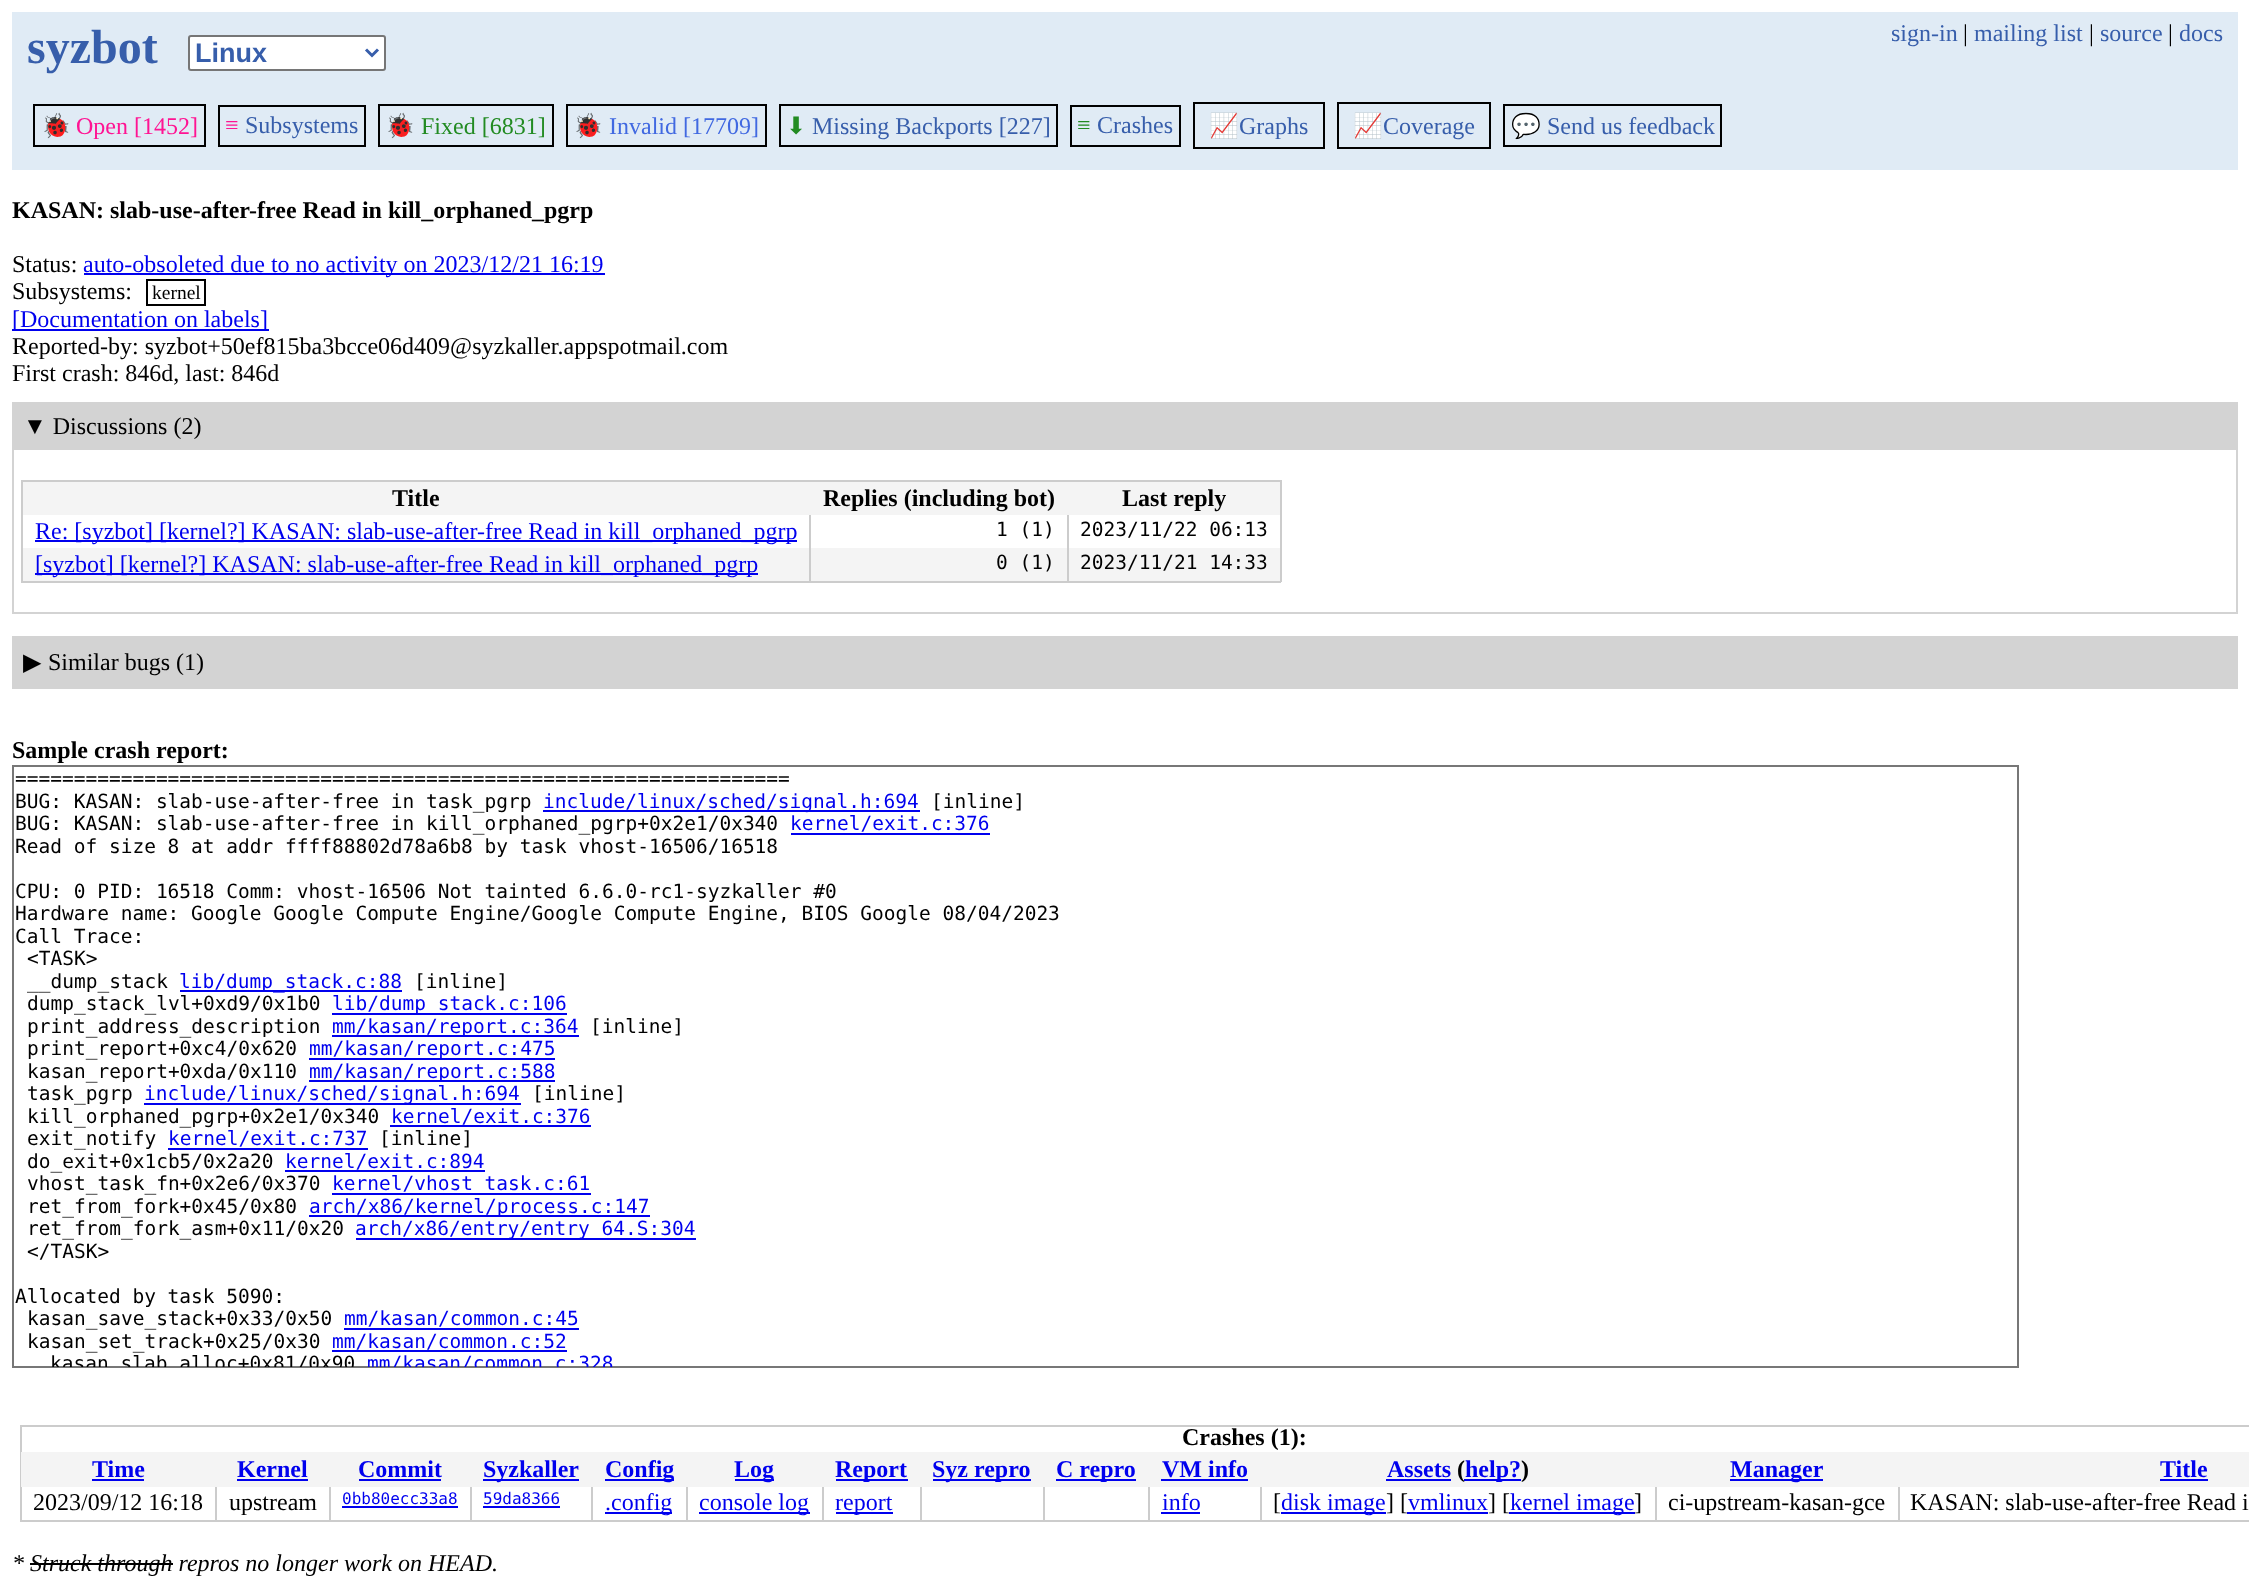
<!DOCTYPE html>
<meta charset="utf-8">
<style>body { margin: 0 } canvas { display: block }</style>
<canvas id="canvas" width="2249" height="1585"></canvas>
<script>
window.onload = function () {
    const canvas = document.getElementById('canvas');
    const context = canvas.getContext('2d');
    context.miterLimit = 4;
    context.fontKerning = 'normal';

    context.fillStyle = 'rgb(255, 255, 255)';
    context.fillRect(0, 0, 2249, 1585);
    context.fillStyle = 'rgb(224, 235, 245)';
    context.fillRect(12, 12, 2226, 158);
    context.fillStyle = 'rgb(255, 255, 255)';
    context.beginPath();
    context.roundRect(189, 36, 196, 34, 2);
    context.fill();
    context.strokeStyle = 'rgb(118, 118, 118)';
    context.lineWidth = 2;
    context.stroke();
    context.beginPath();
    context.moveTo(366, 49.5);
    context.lineTo(372, 55.5);
    context.lineTo(378, 49.5);
    context.strokeStyle = 'rgb(55, 94, 171)';
    context.lineWidth = 3;
    context.stroke();
    context.strokeStyle = 'rgb(0, 0, 0)';
    context.lineWidth = 2;
    context.strokeRect(34, 105, 171, 41);
    context.strokeRect(219, 106, 146, 40);
    context.strokeRect(379, 105, 174, 41);
    context.strokeRect(567, 105, 199, 41);
    context.strokeRect(780, 105, 277, 41);
    context.strokeRect(1071, 106, 109, 40);
    context.strokeRect(1194, 103, 130, 45);
    context.strokeRect(1338, 103, 152, 45);
    context.strokeRect(1504, 105, 217, 41);
    context.fillStyle = 'rgb(0, 0, 238)';
    context.fillRect(84, 273, 521, 2);
    context.strokeRect(147, 280, 58, 25);
    context.fillRect(12, 329, 257, 2);
    context.strokeStyle = 'rgb(211, 211, 211)';
    context.strokeRect(13, 403, 2224, 210);
    context.fillStyle = 'rgb(211, 211, 211)';
    context.fillRect(14, 404, 2222, 46);
    context.fillStyle = 'rgb(204, 204, 204)';
    context.fillRect(21, 480, 1260, 2);
    context.fillRect(1280, 480, 2, 102);
    context.fillRect(21, 581, 1260, 2);
    context.fillRect(21, 480, 2, 102);
    context.fillStyle = 'rgb(244, 244, 244)';
    context.fillRect(23, 482, 1257, 33);
    context.fillStyle = 'rgb(0, 0, 238)';
    context.fillRect(35, 540, 762, 2);
    context.fillStyle = 'rgb(244, 244, 244)';
    context.fillRect(23, 548, 1257, 33);
    context.fillStyle = 'rgb(0, 0, 238)';
    context.fillRect(35, 573, 723, 2);
    context.fillStyle = 'rgb(204, 204, 204)';
    context.fillRect(809, 515, 2, 66);
    context.fillRect(1067, 515, 2, 66);
    context.strokeRect(13, 637, 2224, 51);
    context.fillStyle = 'rgb(211, 211, 211)';
    context.fillRect(14, 638, 2222, 49);
    context.strokeStyle = 'rgb(119, 119, 119)';
    context.strokeRect(13, 766, 2005, 601);
    context.fillStyle = 'rgb(0, 0, 238)';
    context.fillRect(543, 810, 377, 2);
    context.fillRect(791, 833, 199, 2);
    context.fillRect(180, 990, 222, 2);
    context.fillRect(332, 1013, 235, 2);
    context.fillRect(332, 1035, 247, 2);
    context.fillRect(309, 1058, 246, 2);
    context.fillRect(309, 1080, 246, 2);
    context.fillRect(144, 1103, 377, 2);
    context.fillRect(390, 1125, 201, 2);
    context.fillRect(168, 1148, 200, 2);
    context.fillRect(285, 1170, 200, 2);
    context.fillRect(332, 1193, 259, 2);
    context.fillRect(309, 1215, 341, 2);
    context.fillRect(356, 1238, 340, 2);
    context.fillRect(344, 1328, 235, 2);
    context.fillRect(332, 1350, 235, 2);
    context.fillStyle = 'rgb(204, 204, 204)';
    context.fillRect(20, 1425, 2229, 2);
    context.fillRect(20, 1520, 2229, 2);
    context.fillRect(20, 1425, 2, 96);
    context.fillRect(215, 1485, 2, 35);
    context.fillRect(329, 1485, 2, 35);
    context.fillRect(470, 1485, 2, 35);
    context.fillRect(591, 1485, 2, 35);
    context.fillRect(686, 1485, 2, 35);
    context.fillRect(822, 1485, 2, 35);
    context.fillRect(920, 1485, 2, 35);
    context.fillRect(1043, 1485, 2, 35);
    context.fillRect(1148, 1485, 2, 35);
    context.fillRect(1260, 1485, 2, 35);
    context.fillRect(1655, 1485, 2, 35);
    context.fillRect(1898, 1485, 2, 35);
    context.fillStyle = 'rgb(244, 244, 244)';
    context.fillRect(21, 1452, 2228, 35);
    context.fillStyle = 'rgb(0, 0, 238)';
    context.fillRect(92, 1479, 52, 2);
    context.fillRect(237, 1479, 71, 2);
    context.fillRect(359, 1479, 82, 2);
    context.fillRect(483, 1479, 96, 2);
    context.fillRect(605, 1479, 69, 2);
    context.fillRect(735, 1479, 39, 2);
    context.fillRect(836, 1479, 72, 2);
    context.fillRect(933, 1479, 98, 2);
    context.fillRect(1056, 1479, 80, 2);
    context.fillRect(1161, 1479, 87, 2);
    context.fillRect(1386, 1479, 65, 2);
    context.fillRect(1464, 1479, 57, 2);
    context.fillRect(1730, 1479, 93, 2);
    context.fillRect(2160, 1479, 48, 2);
    context.fillRect(342, 1506, 116, 2);
    context.fillRect(483, 1506, 77, 2);
    context.fillRect(605, 1512, 67, 2);
    context.fillRect(699, 1512, 111, 2);
    context.fillRect(836, 1512, 57, 2);
    context.fillRect(1161, 1512, 39, 2);
    context.fillRect(1281, 1512, 105, 2);
    context.fillRect(1407, 1512, 81, 2);
    context.fillRect(1509, 1512, 126, 2);
    context.fillStyle = 'rgb(0, 0, 0)';
    context.fillRect(30, 1563, 143, 2);
    context.font = 'bold 48px Liberation Serif';
    context.fillStyle = 'rgb(55, 94, 171)';
    context.fillText('syzbot', 27, 63);
    context.font = 'bold 27px Liberation Sans';
    context.fillText('Linux', 195, 62);
    context.font = '24px Liberation Serif';
    context.fillText('sign-in', 1891, 41);
    context.fillStyle = 'rgb(0, 0, 0)';
    context.fillText('|', 1963, 41);
    context.fillStyle = 'rgb(55, 94, 171)';
    context.fillText('mailing list', 1974, 41);
    context.fillStyle = 'rgb(0, 0, 0)';
    context.fillText('|', 2089, 41);
    context.fillStyle = 'rgb(55, 94, 171)';
    context.fillText('source', 2100, 41);
    context.fillStyle = 'rgb(0, 0, 0)';
    context.fillText('|', 2168, 41);
    context.fillStyle = 'rgb(55, 94, 171)';
    context.fillText('docs', 2179, 41);
    context.font = '24px Noto Color Emoji';
    context.fillStyle = 'rgb(255, 20, 147)';
    context.fillText('🐞', 41, 134);
    context.font = '24px Liberation Serif';
    context.fillText('Open [1452]', 76, 134);
    context.fillText('≡', 225, 133);
    context.fillStyle = 'rgb(55, 94, 171)';
    context.fillText('Subsystems', 245, 133);
    context.font = '24px Noto Color Emoji';
    context.fillStyle = 'rgb(34, 139, 34)';
    context.fillText('🐞', 385, 134);
    context.font = '24px Liberation Serif';
    context.fillText('Fixed [6831]', 421, 134);
    context.font = '24px Noto Color Emoji';
    context.fillStyle = 'rgb(65, 105, 225)';
    context.fillText('🐞', 573, 134);
    context.font = '24px Liberation Serif';
    context.fillText('Invalid [17709]', 609, 134);
    context.font = '24px DejaVu Sans';
    context.fillStyle = 'rgb(34, 139, 34)';
    context.fillText('⬇', 786, 134);
    context.font = '24px Liberation Serif';
    context.fillStyle = 'rgb(55, 94, 171)';
    context.fillText('Missing Backports [227]', 812, 134);
    context.fillStyle = 'rgb(34, 139, 34)';
    context.fillText('≡', 1077, 133);
    context.fillStyle = 'rgb(55, 94, 171)';
    context.fillText('Crashes', 1097, 133);
    context.font = '24px Noto Color Emoji';
    context.fillStyle = 'rgb(255, 140, 0)';
    context.fillText('📈', 1209, 134);
    context.font = '24px Liberation Serif';
    context.fillStyle = 'rgb(55, 94, 171)';
    context.fillText('Graphs', 1239, 134);
    context.font = '24px Noto Color Emoji';
    context.fillStyle = 'rgb(255, 140, 0)';
    context.fillText('📈', 1353, 134);
    context.font = '24px Liberation Serif';
    context.fillStyle = 'rgb(55, 94, 171)';
    context.fillText('Coverage', 1383, 134);
    context.font = '24px Noto Color Emoji';
    context.fillStyle = 'rgb(34, 139, 34)';
    context.fillText('💬', 1511, 134);
    context.font = '24px Liberation Serif';
    context.fillStyle = 'rgb(55, 94, 171)';
    context.fillText('Send us feedback', 1547, 134);
    context.font = 'bold 24px Liberation Serif';
    context.fillStyle = 'rgb(0, 0, 0)';
    context.fillText('KASAN: slab-use-after-free Read in kill_orphaned_pgrp', 12, 218);
    context.font = '24px Liberation Serif';
    context.fillText('Status:', 12, 272);
    context.fillStyle = 'rgb(0, 0, 238)';
    context.fillText('auto-obsoleted due to no activity on 2023/12/21 16:19', 83, 272);
    context.fillStyle = 'rgb(0, 0, 0)';
    context.fillText('Subsystems:', 12, 299);
    context.font = '19.5px Liberation Serif';
    context.fillText('kernel', 152, 299);
    context.font = '24px Liberation Serif';
    context.fillStyle = 'rgb(0, 0, 238)';
    context.fillText('[Documentation on labels]', 12, 327);
    context.fillStyle = 'rgb(0, 0, 0)';
    context.fillText('Reported-by: syzbot+50ef815ba3bcce06d409@syzkaller.appspotmail.com', 12, 354);
    context.fillText('First crash: 846d, last: 846d', 12, 381);
    context.fillText('▼ Discussions (2)', 23, 434);
    context.font = 'bold 24px Liberation Serif';
    context.fillText('Title', 392, 506);
    context.fillText('Replies (including bot)', 823, 506);
    context.fillText('Last reply', 1122, 506);
    context.font = '24px Liberation Serif';
    context.fillStyle = 'rgb(0, 0, 238)';
    context.fillText('Re: [syzbot] [kernel?] KASAN: slab-use-after-free Read in kill_orphaned_pgrp', 35, 539);
    context.font = '19.5px DejaVu Sans Mono';
    context.fillStyle = 'rgb(0, 0, 0)';
    context.fillText('1 (1)', 996, 536);
    context.fillText('2023/11/22 06:13', 1080, 536);
    context.font = '24px Liberation Serif';
    context.fillStyle = 'rgb(0, 0, 238)';
    context.fillText('[syzbot] [kernel?] KASAN: slab-use-after-free Read in kill_orphaned_pgrp', 35, 572);
    context.font = '19.5px DejaVu Sans Mono';
    context.fillStyle = 'rgb(0, 0, 0)';
    context.fillText('0 (1)', 996, 569);
    context.fillText('2023/11/21 14:33', 1080, 569);
    context.font = '24px DejaVu Sans';
    context.fillText('▶', 23, 670);
    context.font = '24px Liberation Serif';
    context.fillText('Similar bugs (1)', 48, 670);
    context.font = 'bold 24px Liberation Serif';
    context.fillText('Sample crash report:', 12, 758);
    context.font = '19.5px DejaVu Sans Mono';
    context.fillText('==================================================================', 15, 785);
    context.fillText('BUG: KASAN: slab-use-after-free in task_pgrp', 15, 808);
    context.fillStyle = 'rgb(0, 0, 238)';
    context.fillText('include/linux/sched/signal.h:694', 543, 808);
    context.fillStyle = 'rgb(0, 0, 0)';
    context.fillText('[inline]', 931, 808);
    context.fillText('BUG: KASAN: slab-use-after-free in kill_orphaned_pgrp+0x2e1/0x340', 15, 830);
    context.fillStyle = 'rgb(0, 0, 238)';
    context.fillText('kernel/exit.c:376', 790, 830);
    context.fillStyle = 'rgb(0, 0, 0)';
    context.fillText('Read of size 8 at addr ffff88802d78a6b8 by task vhost-16506/16518', 15, 853);
    context.fillText('CPU: 0 PID: 16518 Comm: vhost-16506 Not tainted 6.6.0-rc1-syzkaller #0', 15, 898);
    context.fillText('Hardware name: Google Google Compute Engine/Google Compute Engine, BIOS Google 08/04/2023', 15, 920);
    context.fillText('Call Trace:', 15, 943);
    context.fillText('<TASK>', 27, 965);
    context.fillText('__dump_stack', 27, 988);
    context.fillStyle = 'rgb(0, 0, 238)';
    context.fillText('lib/dump_stack.c:88', 179, 988);
    context.fillStyle = 'rgb(0, 0, 0)';
    context.fillText('[inline]', 414, 988);
    context.fillText('dump_stack_lvl+0xd9/0x1b0', 27, 1010);
    context.fillStyle = 'rgb(0, 0, 238)';
    context.fillText('lib/dump_stack.c:106', 332, 1010);
    context.fillStyle = 'rgb(0, 0, 0)';
    context.fillText('print_address_description', 27, 1033);
    context.fillStyle = 'rgb(0, 0, 238)';
    context.fillText('mm/kasan/report.c:364', 332, 1033);
    context.fillStyle = 'rgb(0, 0, 0)';
    context.fillText('[inline]', 590, 1033);
    context.fillText('print_report+0xc4/0x620', 27, 1055);
    context.fillStyle = 'rgb(0, 0, 238)';
    context.fillText('mm/kasan/report.c:475', 309, 1055);
    context.fillStyle = 'rgb(0, 0, 0)';
    context.fillText('kasan_report+0xda/0x110', 27, 1078);
    context.fillStyle = 'rgb(0, 0, 238)';
    context.fillText('mm/kasan/report.c:588', 309, 1078);
    context.fillStyle = 'rgb(0, 0, 0)';
    context.fillText('task_pgrp', 27, 1100);
    context.fillStyle = 'rgb(0, 0, 238)';
    context.fillText('include/linux/sched/signal.h:694', 144, 1100);
    context.fillStyle = 'rgb(0, 0, 0)';
    context.fillText('[inline]', 532, 1100);
    context.fillText('kill_orphaned_pgrp+0x2e1/0x340', 27, 1123);
    context.fillStyle = 'rgb(0, 0, 238)';
    context.fillText('kernel/exit.c:376', 391, 1123);
    context.fillStyle = 'rgb(0, 0, 0)';
    context.fillText('exit_notify', 27, 1145);
    context.fillStyle = 'rgb(0, 0, 238)';
    context.fillText('kernel/exit.c:737', 168, 1145);
    context.fillStyle = 'rgb(0, 0, 0)';
    context.fillText('[inline]', 379, 1145);
    context.fillText('do_exit+0x1cb5/0x2a20', 27, 1168);
    context.fillStyle = 'rgb(0, 0, 238)';
    context.fillText('kernel/exit.c:894', 285, 1168);
    context.fillStyle = 'rgb(0, 0, 0)';
    context.fillText('vhost_task_fn+0x2e6/0x370', 27, 1190);
    context.fillStyle = 'rgb(0, 0, 238)';
    context.fillText('kernel/vhost_task.c:61', 332, 1190);
    context.fillStyle = 'rgb(0, 0, 0)';
    context.fillText('ret_from_fork+0x45/0x80', 27, 1213);
    context.fillStyle = 'rgb(0, 0, 238)';
    context.fillText('arch/x86/kernel/process.c:147', 309, 1213);
    context.fillStyle = 'rgb(0, 0, 0)';
    context.fillText('ret_from_fork_asm+0x11/0x20', 27, 1235);
    context.fillStyle = 'rgb(0, 0, 238)';
    context.fillText('arch/x86/entry/entry_64.S:304', 355, 1235);
    context.fillStyle = 'rgb(0, 0, 0)';
    context.fillText('<\/TASK>', 27, 1258);
    context.fillText('Allocated by task 5090:', 15, 1303);
    context.fillText('kasan_save_stack+0x33/0x50', 27, 1325);
    context.fillStyle = 'rgb(0, 0, 238)';
    context.fillText('mm/kasan/common.c:45', 344, 1325);
    context.fillStyle = 'rgb(0, 0, 0)';
    context.fillText('kasan_set_track+0x25/0x30', 27, 1348);
    context.fillStyle = 'rgb(0, 0, 238)';
    context.fillText('mm/kasan/common.c:52', 332, 1348);
    context.save();
    context.beginPath();
    context.rect(14, 767, 2004, 600);
    context.clip();
    context.fillStyle = 'rgb(0, 0, 0)';
    context.fillText('kasan_slab_alloc+0x81/0x90', 50, 1370);
    context.fillStyle = 'rgb(0, 0, 238)';
    context.fillText('mm/kasan/common.c:328', 367, 1370);
    context.restore();
    context.font = 'bold 24px Liberation Serif';
    context.fillStyle = 'rgb(0, 0, 0)';
    context.fillText('Crashes (1):', 1182, 1445);
    context.fillStyle = 'rgb(0, 0, 238)';
    context.fillText('Time', 92, 1477);
    context.fillText('Kernel', 237, 1477);
    context.fillText('Commit', 358, 1477);
    context.fillText('Syzkaller', 483, 1477);
    context.fillText('Config', 605, 1477);
    context.fillText('Log', 734, 1477);
    context.fillText('Report', 835, 1477);
    context.fillText('Syz repro', 932, 1477);
    context.fillText('C repro', 1056, 1477);
    context.fillText('VM info', 1162, 1477);
    context.fillText('Assets', 1387, 1477);
    context.fillStyle = 'rgb(0, 0, 0)';
    context.fillText('(', 1457, 1477);
    context.fillStyle = 'rgb(0, 0, 238)';
    context.fillText('help?', 1465, 1477);
    context.fillStyle = 'rgb(0, 0, 0)';
    context.fillText(')', 1521, 1477);
    context.fillStyle = 'rgb(0, 0, 238)';
    context.fillText('Manager', 1730, 1477);
    context.fillText('Title', 2160, 1477);
    context.font = '24px Liberation Serif';
    context.fillStyle = 'rgb(0, 0, 0)';
    context.fillText('2023/09/12 16:18', 33, 1510);
    context.fillText('upstream', 229, 1510);
    context.font = '16px DejaVu Sans Mono';
    context.fillStyle = 'rgb(0, 0, 238)';
    context.fillText('0bb80ecc33a8', 342, 1504);
    context.fillText('59da8366', 483, 1504);
    context.font = '24px Liberation Serif';
    context.fillText('.config', 605, 1510);
    context.fillText('console log', 699, 1510);
    context.fillText('report', 835, 1510);
    context.fillText('info', 1162, 1510);
    context.fillStyle = 'rgb(0, 0, 0)';
    context.fillText('[', 1273, 1510);
    context.fillStyle = 'rgb(0, 0, 238)';
    context.fillText('disk image', 1281, 1510);
    context.fillStyle = 'rgb(0, 0, 0)';
    context.fillText('] [', 1386, 1510);
    context.fillStyle = 'rgb(0, 0, 238)';
    context.fillText('vmlinux', 1408, 1510);
    context.fillStyle = 'rgb(0, 0, 0)';
    context.fillText('] [', 1488, 1510);
    context.fillStyle = 'rgb(0, 0, 238)';
    context.fillText('kernel image', 1510, 1510);
    context.fillStyle = 'rgb(0, 0, 0)';
    context.fillText(']', 1634, 1510);
    context.fillText('ci-upstream-kasan-gce', 1668, 1510);
    context.fillText('KASAN: slab-use-after-free Read i', 1910, 1510);
    context.font = 'italic 24px Liberation Serif';
    context.fillText('* Struck through repros no longer work on HEAD.', 12, 1571);
};
</script>
